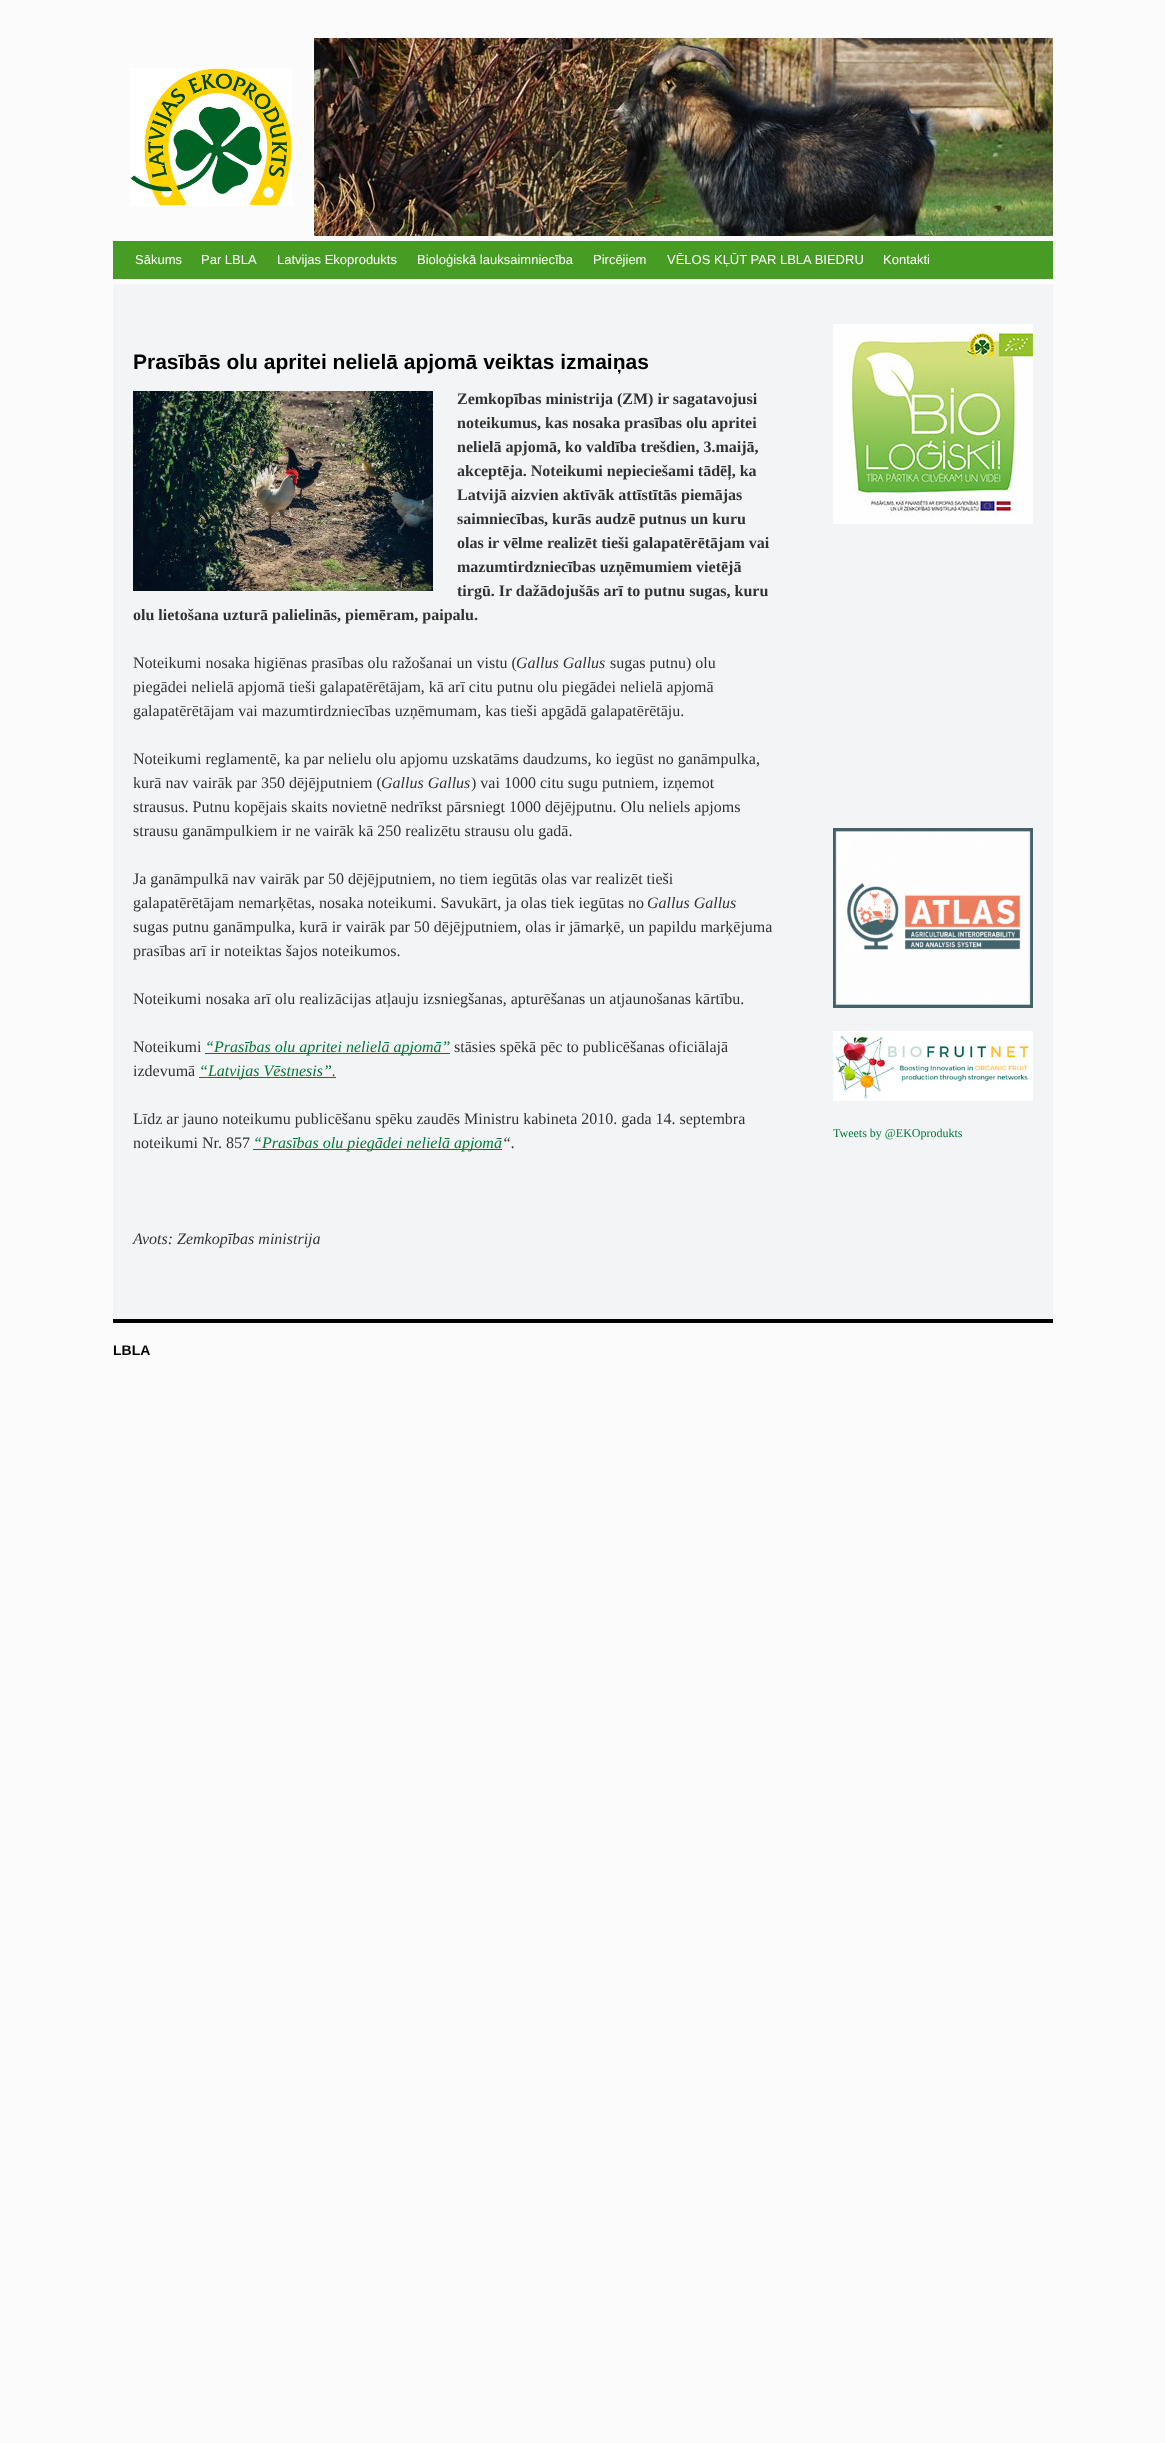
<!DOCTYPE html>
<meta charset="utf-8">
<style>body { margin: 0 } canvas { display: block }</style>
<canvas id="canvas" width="1165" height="2443"></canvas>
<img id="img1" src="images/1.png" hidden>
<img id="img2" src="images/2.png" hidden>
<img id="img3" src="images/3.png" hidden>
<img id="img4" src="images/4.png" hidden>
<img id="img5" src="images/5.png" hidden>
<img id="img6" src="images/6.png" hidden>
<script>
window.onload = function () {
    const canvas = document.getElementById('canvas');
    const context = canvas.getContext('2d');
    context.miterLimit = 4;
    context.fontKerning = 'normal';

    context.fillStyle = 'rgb(251, 251, 251)';
    context.fillRect(0, 0, 1165, 2443);
    context.drawImage(document.getElementById('img1'), 312, 38, 741, 198);
    context.drawImage(document.getElementById('img2'), 130, 68, 162, 138);
    context.fillStyle = 'rgb(71, 156, 35)';
    context.fillRect(113, 241, 940, 38);
    context.fillStyle = 'rgb(243, 244, 245)';
    context.fillRect(113, 284, 940, 1035);
    context.drawImage(document.getElementById('img3'), 133, 391, 300, 200);
    context.fillStyle = 'rgb(0, 121, 59)';
    context.fillRect(205, 1053, 245, 1);
    context.fillRect(199, 1077, 137, 1);
    context.fillRect(253, 1149, 249, 1);
    context.drawImage(document.getElementById('img4'), 833, 324, 200, 200);
    context.drawImage(document.getElementById('img5'), 833, 828, 200, 180);
    context.drawImage(document.getElementById('img6'), 833, 1031, 200, 70);
    context.fillStyle = 'rgb(0, 0, 0)';
    context.fillRect(113, 1319, 940, 4);
    context.font = '13px Liberation Sans';
    context.fillStyle = 'rgb(255, 255, 255)';
    context.fillText('Sākums', 135, 264);
    context.fillText('Par LBLA', 201, 264);
    context.fillText('Latvijas Ekoprodukts', 277, 264);
    context.fillText('Bioloģiskā lauksaimniecība', 417, 264);
    context.fillText('Pircējiem', 593, 264);
    context.fillText('VĒLOS KĻŪT PAR LBLA BIEDRU', 667, 264);
    context.fillText('Kontakti', 883, 264);
    context.font = 'bold 21px Liberation Sans';
    context.fillStyle = 'rgb(0, 0, 0)';
    context.fillText('Prasībās olu apritei nelielā apjomā veiktas izmaiņas', 133, 369);
    context.font = 'bold 16px Liberation Serif';
    context.fillStyle = 'rgb(51, 51, 51)';
    context.fillText('Zemkopības ministrija (ZM) ir sagatavojusi', 457, 404);
    context.fillText('noteikumus, kas nosaka prasības olu apritei', 457, 428);
    context.fillText('nelielā apjomā, ko valdība trešdien, 3.maijā,', 457, 452);
    context.fillText('akceptēja. Noteikumi nepieciešami tādēļ, ka', 457, 476);
    context.fillText('Latvijā aizvien aktīvāk attīstītās piemājas', 457, 500);
    context.fillText('saimniecības, kurās audzē putnus un kuru', 457, 524);
    context.fillText('olas ir vēlme realizēt tieši galapatērētājam vai', 457, 548);
    context.fillText('mazumtirdzniecības uzņēmumiem vietējā', 457, 572);
    context.fillText('tirgū. Ir dažādojušās arī to putnu sugas, kuru', 457, 596);
    context.fillText('olu lietošana uzturā palielinās, piemēram, paipalu.', 133, 620);
    context.font = '16px Liberation Serif';
    context.fillText('Noteikumi nosaka higiēnas prasības olu ražošanai un vistu (', 133, 668);
    context.font = 'italic 16px Liberation Serif';
    context.fillText('Gallus Gallus', 516, 668);
    context.font = '16px Liberation Serif';
    context.fillText('sugas putnu) olu', 610, 668);
    context.fillText('piegādei nelielā apjomā tieši galapatērētājam, kā arī citu putnu olu piegādei nelielā apjomā', 133, 692);
    context.fillText('galapatērētājam vai mazumtirdzniecības uzņēmumam, kas tieši apgādā galapatērētāju.', 133, 716);
    context.fillText('Noteikumi reglamentē, ka par nelielu olu apjomu uzskatāms daudzums, ko iegūst no ganāmpulka,', 133, 764);
    context.fillText('kurā nav vairāk par 350 dējējputniem (', 133, 788);
    context.font = 'italic 16px Liberation Serif';
    context.fillText('Gallus Gallus', 381, 788);
    context.font = '16px Liberation Serif';
    context.fillText(') vai 1000 citu sugu putniem, izņemot', 471, 788);
    context.fillText('strausus. Putnu kopējais skaits novietnē nedrīkst pārsniegt 1000 dējējputnu. Olu neliels apjoms', 133, 812);
    context.fillText('strausu ganāmpulkiem ir ne vairāk kā 250 realizētu strausu olu gadā.', 133, 836);
    context.fillText('Ja ganāmpulkā nav vairāk par 50 dējējputniem, no tiem iegūtās olas var realizēt tieši', 133, 884);
    context.fillText('galapatērētājam nemarķētas, nosaka noteikumi. Savukārt, ja olas tiek iegūtas no', 133, 908);
    context.font = 'italic 16px Liberation Serif';
    context.fillText('Gallus Gallus', 647, 908);
    context.font = '16px Liberation Serif';
    context.fillText('sugas putnu ganāmpulka, kurā ir vairāk par 50 dējējputniem, olas ir jāmarķē, un papildu marķējuma', 133, 932);
    context.fillText('prasības arī ir noteiktas šajos noteikumos.', 133, 956);
    context.fillText('Noteikumi nosaka arī olu realizācijas atļauju izsniegšanas, apturēšanas un atjaunošanas kārtību.', 133, 1004);
    context.fillText('Noteikumi', 133, 1052);
    context.font = 'italic 16px Liberation Serif';
    context.fillStyle = 'rgb(0, 121, 59)';
    context.fillText('“Prasības olu apritei nelielā apjomā”', 205, 1052);
    context.font = '16px Liberation Serif';
    context.fillStyle = 'rgb(51, 51, 51)';
    context.fillText('stāsies spēkā pēc to publicēšanas oficiālajā', 454, 1052);
    context.fillText('izdevumā', 133, 1076);
    context.font = 'italic 16px Liberation Serif';
    context.fillStyle = 'rgb(0, 121, 59)';
    context.fillText('“Latvijas Vēstnesis”.', 199, 1076);
    context.font = '16px Liberation Serif';
    context.fillStyle = 'rgb(51, 51, 51)';
    context.fillText('Līdz ar jauno noteikumu publicēšanu spēku zaudēs Ministru kabineta 2010. gada 14. septembra', 133, 1124);
    context.fillText('noteikumi Nr. 857', 133, 1148);
    context.font = 'italic 16px Liberation Serif';
    context.fillStyle = 'rgb(0, 121, 59)';
    context.fillText('“Prasības olu piegādei nelielā apjomā', 253, 1148);
    context.fillStyle = 'rgb(51, 51, 51)';
    context.fillText('“.', 502, 1148);
    context.fillText('Avots: Zemkopības ministrija', 133, 1244);
    context.font = '12px Liberation Serif';
    context.fillStyle = 'rgb(0, 121, 59)';
    context.fillText('Tweets by @EKOprodukts', 833, 1137);
    context.font = 'bold 14px Liberation Sans';
    context.fillStyle = 'rgb(0, 0, 0)';
    context.fillText('LBLA', 113, 1355);
};
</script>
